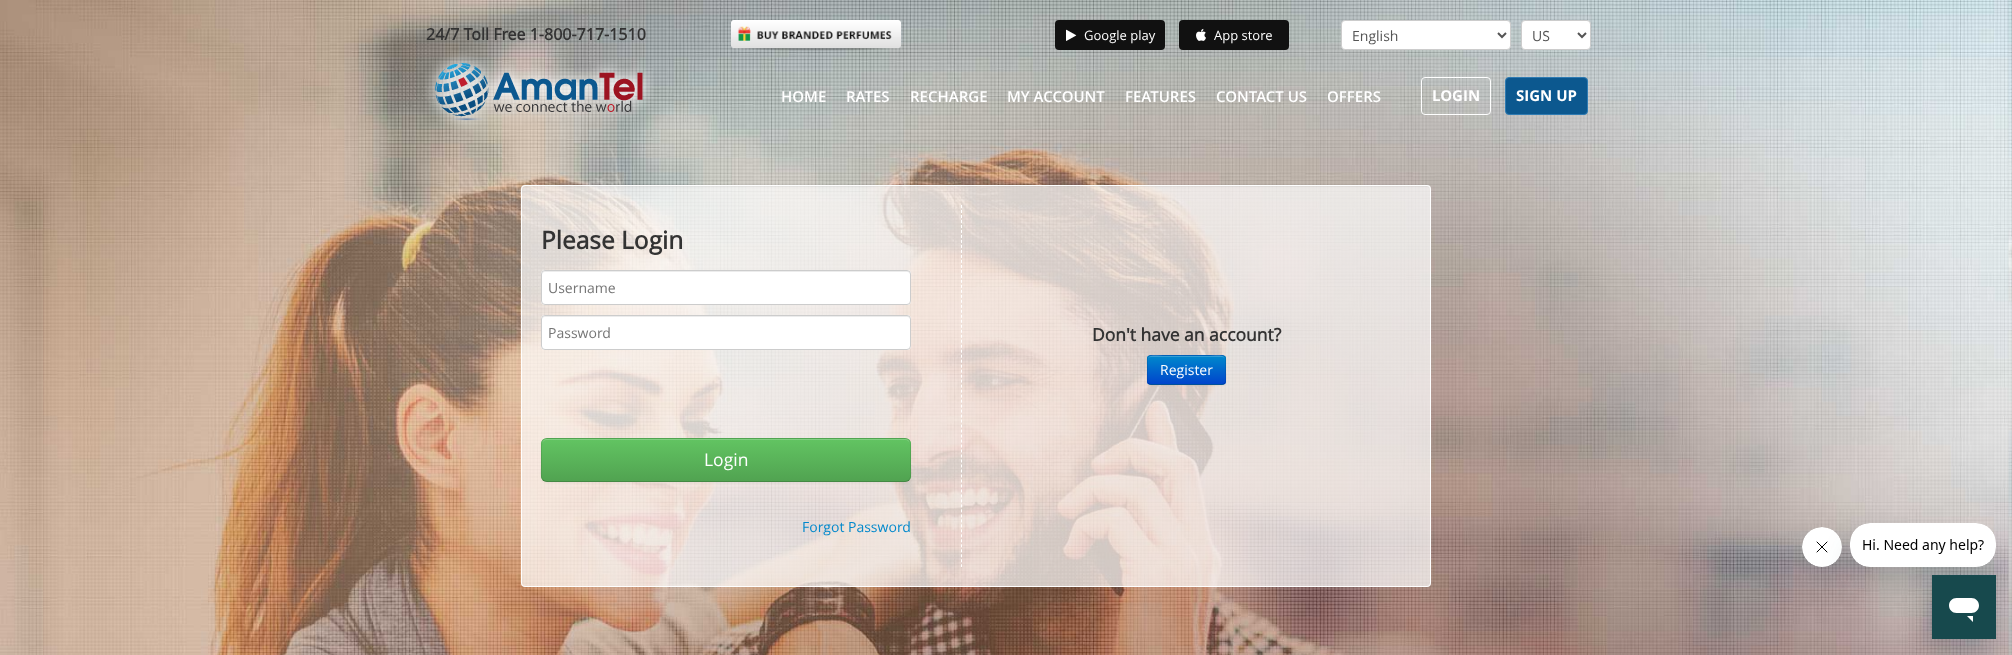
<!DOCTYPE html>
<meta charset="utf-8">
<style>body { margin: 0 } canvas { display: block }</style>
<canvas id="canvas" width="2012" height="655"></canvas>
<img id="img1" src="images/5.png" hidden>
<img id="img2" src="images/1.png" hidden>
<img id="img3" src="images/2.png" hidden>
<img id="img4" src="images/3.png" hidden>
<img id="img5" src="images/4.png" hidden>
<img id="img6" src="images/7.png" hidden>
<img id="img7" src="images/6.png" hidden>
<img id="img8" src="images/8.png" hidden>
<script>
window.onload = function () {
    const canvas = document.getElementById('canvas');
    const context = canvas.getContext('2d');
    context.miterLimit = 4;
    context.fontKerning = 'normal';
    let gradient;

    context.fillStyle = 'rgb(255, 255, 255)';
    context.fillRect(0, 0, 2012, 655);
    context.drawImage(document.getElementById('img1'), 0, 0, 2012, 655);
    context.drawImage(document.getElementById('img2'), 731, 20, 170, 31);
    context.fillStyle = 'rgb(17, 17, 17)';
    context.beginPath();
    context.roundRect(1055, 20, 110, 30, 4);
    context.fill();
    context.drawImage(document.getElementById('img3'), 1066, 29, 11, 12);
    context.beginPath();
    context.roundRect(1179, 20, 110, 30, 4);
    context.fill();
    context.drawImage(document.getElementById('img4'), 1196, 28, 10, 13);
    context.fillStyle = 'rgb(255, 255, 255)';
    context.beginPath();
    context.roundRect(1341.5, 20.5, 169, 29, 3.5);
    context.fill();
    context.strokeStyle = 'rgb(204, 204, 204)';
    context.stroke();
    context.beginPath();
    context.moveTo(1498, 33);
    context.lineTo(1502, 37);
    context.lineTo(1506, 33);
    context.strokeStyle = 'rgb(85, 85, 85)';
    context.lineWidth = 2;
    context.stroke();
    context.beginPath();
    context.roundRect(1521.5, 20.5, 69, 29, 3.5);
    context.fill();
    context.strokeStyle = 'rgb(204, 204, 204)';
    context.lineWidth = 1;
    context.stroke();
    context.beginPath();
    context.moveTo(1578, 33);
    context.lineTo(1582, 37);
    context.lineTo(1586, 33);
    context.strokeStyle = 'rgb(85, 85, 85)';
    context.lineWidth = 2;
    context.stroke();
    context.drawImage(document.getElementById('img5'), 424, 52, 231, 78);
    context.beginPath();
    context.roundRect(1421.5, 77.5, 69, 37, 3.5);
    context.strokeStyle = 'rgb(255, 255, 255)';
    context.lineWidth = 1;
    context.stroke();
    context.fillStyle = 'rgb(12, 88, 143)';
    context.beginPath();
    context.roundRect(1505.5, 77.5, 82, 37, 3.5);
    context.fill();
    context.strokeStyle = 'rgb(47, 123, 178)';
    context.stroke();
    context.fillStyle = 'rgba(255, 255, 255, 0.7)';
    context.beginPath();
    context.roundRect(521, 185, 910, 402, 4);
    context.fill();
    context.fillStyle = 'rgba(0, 0, 0, 0.05)';
    context.beginPath();
    context.moveTo(525, 187);
    context.lineTo(1427, 187);
    context.bezierCurveTo(1429, 187, 1430, 188, 1430, 190);
    context.bezierCurveTo(1430, 188, 1429, 186, 1427, 186);
    context.lineTo(525, 186);
    context.bezierCurveTo(523, 186, 522, 188, 522, 190);
    context.bezierCurveTo(522, 188, 523, 187, 525, 187);
    context.closePath();
    context.fill();
    context.beginPath();
    context.roundRect(521.5, 185.5, 909, 401, 3.5);
    context.strokeStyle = 'rgb(255, 255, 255)';
    context.stroke();
    context.beginPath();
    context.moveTo(961.5, 205);
    context.lineTo(961.5, 567);
    context.setLineDash([3, 1.99]);
    context.stroke();
    context.fillStyle = 'rgb(255, 255, 255)';
    context.beginPath();
    context.roundRect(541, 270, 370, 35, 4);
    context.fill();
    context.fillStyle = 'rgb(236, 236, 236)';
    context.beginPath();
    context.moveTo(545, 272);
    context.lineTo(907, 272);
    context.bezierCurveTo(909, 272, 910, 273, 910, 275);
    context.bezierCurveTo(910, 273, 909, 271, 907, 271);
    context.lineTo(545, 271);
    context.lineTo(543, 272);
    context.lineTo(542, 275);
    context.bezierCurveTo(542, 273, 543, 272, 545, 272);
    context.closePath();
    context.fill();
    context.beginPath();
    context.roundRect(541.5, 270.5, 369, 34, 3.5);
    context.strokeStyle = 'rgb(204, 204, 204)';
    context.setLineDash([]);
    context.stroke();
    context.fillStyle = 'rgb(255, 255, 255)';
    context.beginPath();
    context.roundRect(541, 315, 370, 35, 4);
    context.fill();
    context.fillStyle = 'rgb(236, 236, 236)';
    context.beginPath();
    context.moveTo(545, 317);
    context.lineTo(907, 317);
    context.bezierCurveTo(909, 317, 910, 318, 910, 320);
    context.bezierCurveTo(910, 318, 909, 316, 907, 316);
    context.lineTo(545, 316);
    context.lineTo(543, 317);
    context.lineTo(542, 320);
    context.bezierCurveTo(542, 318, 543, 317, 545, 317);
    context.closePath();
    context.fill();
    context.beginPath();
    context.roundRect(541.5, 315.5, 369, 34, 3.5);
    context.stroke();
    context.fillStyle = 'rgba(0, 0, 0, 0.05)';
    context.filter = 'blur(1px)';
    context.beginPath();
    context.roundRect(541, 439, 370, 44, 6);
    context.fill();
    context.filter = 'none';
    context.fillStyle = 'rgb(91, 183, 91)';
    context.beginPath();
    context.roundRect(541, 438, 370, 44, 6);
    context.fill();
    context.save();
    context.beginPath();
    context.roundRect(541, 438, 370, 44, 6);
    context.clip();
    gradient = context.createLinearGradient(726, 439, 726, 481);
    gradient.addColorStop(0, 'rgb(98, 196, 98)');
    gradient.addColorStop(1, 'rgb(81, 163, 81)');
    context.fillStyle = gradient;
    context.fillRect(541, 439, 370, 42);
    context.restore();
    context.fillStyle = 'rgb(129, 208, 129)';
    context.beginPath();
    context.moveTo(547, 440);
    context.lineTo(905, 440);
    context.bezierCurveTo(908, 440, 910, 442, 910, 445);
    context.lineTo(910, 444);
    context.bezierCurveTo(910, 441, 908, 439, 905, 439);
    context.lineTo(547, 439);
    context.bezierCurveTo(544, 439, 542, 441, 542, 444);
    context.lineTo(542, 445);
    context.bezierCurveTo(542, 442, 544, 440, 547, 440);
    context.closePath();
    context.fill();
    context.beginPath();
    context.moveTo(909, 480);
    context.bezierCurveTo(908, 481, 906.5, 481.5, 905, 481.5);
    context.lineTo(547, 481.5);
    context.bezierCurveTo(545.5, 481.5, 544, 481, 543, 480);
    context.strokeStyle = 'rgba(0, 0, 0, 0.25)';
    context.stroke();
    context.beginPath();
    context.moveTo(543, 480);
    context.bezierCurveTo(540, 476.5, 541.5, 469, 541.5, 465.5);
    context.lineTo(541.5, 449.5);
    context.bezierCurveTo(541.5, 445, 541, 438.5, 547, 438.5);
    context.lineTo(905, 438.5);
    context.bezierCurveTo(911, 438.5, 910.5, 445, 910.5, 449.5);
    context.lineTo(910.5, 465.5);
    context.bezierCurveTo(910.5, 469, 912, 476.5, 909, 480);
    context.strokeStyle = 'rgba(0, 0, 0, 0.1)';
    context.stroke();
    context.fillStyle = 'rgba(0, 0, 0, 0.05)';
    context.filter = 'blur(1px)';
    context.beginPath();
    context.roundRect(1147, 356, 79, 30, 4);
    context.fill();
    context.filter = 'none';
    context.fillStyle = 'rgb(0, 109, 204)';
    context.beginPath();
    context.roundRect(1147, 355, 79, 30, 4);
    context.fill();
    context.save();
    context.beginPath();
    context.roundRect(1147, 355, 79, 30, 4);
    context.clip();
    gradient = context.createLinearGradient(1187, 356, 1187, 384);
    gradient.addColorStop(0, 'rgb(0, 136, 204)');
    gradient.addColorStop(1, 'rgb(0, 68, 204)');
    context.fillStyle = gradient;
    context.fillRect(1147, 356, 79, 28);
    context.restore();
    context.fillStyle = 'rgba(255, 255, 255, 0.2)';
    context.beginPath();
    context.moveTo(1151, 357);
    context.lineTo(1222, 357);
    context.bezierCurveTo(1224, 357, 1225, 358, 1225, 360);
    context.bezierCurveTo(1225, 353, 1214, 356, 1210, 356);
    context.lineTo(1163, 356);
    context.bezierCurveTo(1159, 356, 1148, 353, 1148, 360);
    context.bezierCurveTo(1148, 358, 1149, 357, 1151, 357);
    context.closePath();
    context.fill();
    context.beginPath();
    context.moveTo(1224.5, 383.5);
    context.bezierCurveTo(1224, 384, 1223, 384.5, 1222, 384.5);
    context.lineTo(1151, 384.5);
    context.bezierCurveTo(1150, 384.5, 1149, 384, 1148.5, 383.5);
    context.strokeStyle = 'rgba(0, 0, 0, 0.25)';
    context.stroke();
    context.beginPath();
    context.moveTo(1148.5, 383.5);
    context.bezierCurveTo(1146.5, 381.5, 1147.5, 373, 1147.5, 370);
    context.bezierCurveTo(1147.5, 353, 1145, 355.5, 1163, 355.5);
    context.lineTo(1210, 355.5);
    context.bezierCurveTo(1228, 355.5, 1225.5, 353, 1225.5, 370);
    context.bezierCurveTo(1225.5, 373, 1226.5, 381.5, 1224.5, 383.5);
    context.strokeStyle = 'rgba(0, 0, 0, 0.1)';
    context.stroke();
    context.fillStyle = 'rgba(23, 73, 77, 0.15)';
    context.filter = 'blur(15px)';
    context.beginPath();
    context.roundRect(1802, 547, 40, 40, 20);
    context.fill();
    context.filter = 'none';
    context.drawImage(document.getElementById('img6'), 1802, 527, 40, 40);
    context.filter = 'blur(15px)';
    context.beginPath();
    context.roundRect(1850, 543, 146, 44, 20);
    context.fill();
    context.filter = 'none';
    context.drawImage(document.getElementById('img7'), 1850, 523, 146, 44);
    context.filter = 'blur(15px)';
    context.beginPath();
    context.rect(1932, 595, 64, 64);
    context.fill();
    context.filter = 'none';
    context.drawImage(document.getElementById('img8'), 1932, 575, 64, 64);
    context.font = 'bold 16px Open Sans';
    context.fillStyle = 'rgb(51, 51, 51)';
    context.fillText('24/7 Toll Free 1-800-717-1510', 426, 40);
    context.font = '13px Open Sans';
    context.fillStyle = 'rgb(255, 255, 255)';
    context.fillText('Google play', 1084, 40);
    context.fillText('App store', 1214, 40);
    context.font = '14px Open Sans';
    context.fillStyle = 'rgb(85, 85, 85)';
    context.fillText('English', 1352, 41);
    context.fillText('US', 1532, 41);
    context.font = '600 15px Open Sans';
    context.fillStyle = 'rgb(255, 255, 255)';
    context.fillText('HOME', 781, 102);
    context.fillText('RATES', 846, 102);
    context.fillText('RECHARGE', 910, 102);
    context.fillText('MY ACCOUNT', 1007, 102);
    context.fillText('FEATURES', 1125, 102);
    context.fillText('CONTACT US', 1216, 102);
    context.fillText('OFFERS', 1327, 102);
    context.font = 'bold 15px "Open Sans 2"';
    context.fillText('LOGIN', 1432, 101);
    context.fillText('SIGN UP', 1516, 101);
    context.font = 'bold 24.5px Open Sans';
    context.fillStyle = 'rgb(51, 51, 51)';
    context.fillText('Please Login', 541, 249);
    context.font = '14px Open Sans';
    context.fillStyle = 'rgb(117, 117, 117)';
    context.fillText('Username', 548, 293);
    context.fillText('Password', 548, 338);
    context.font = '17.5px Open Sans';
    context.fillStyle = 'rgb(255, 255, 255)';
    context.fillText('Login', 704, 466);
    context.font = '14px Open Sans';
    context.fillStyle = 'rgb(0, 136, 204)';
    context.fillText('Forgot Password', 802, 532);
    context.font = 'bold 17.5px Open Sans';
    context.fillStyle = 'rgb(51, 51, 51)';
    context.fillText('Don\'t have an account?', 1092, 341);
    context.font = '14px Open Sans';
    context.fillStyle = 'rgb(255, 255, 255)';
    context.fillText('Register', 1160, 375);
};
</script>
